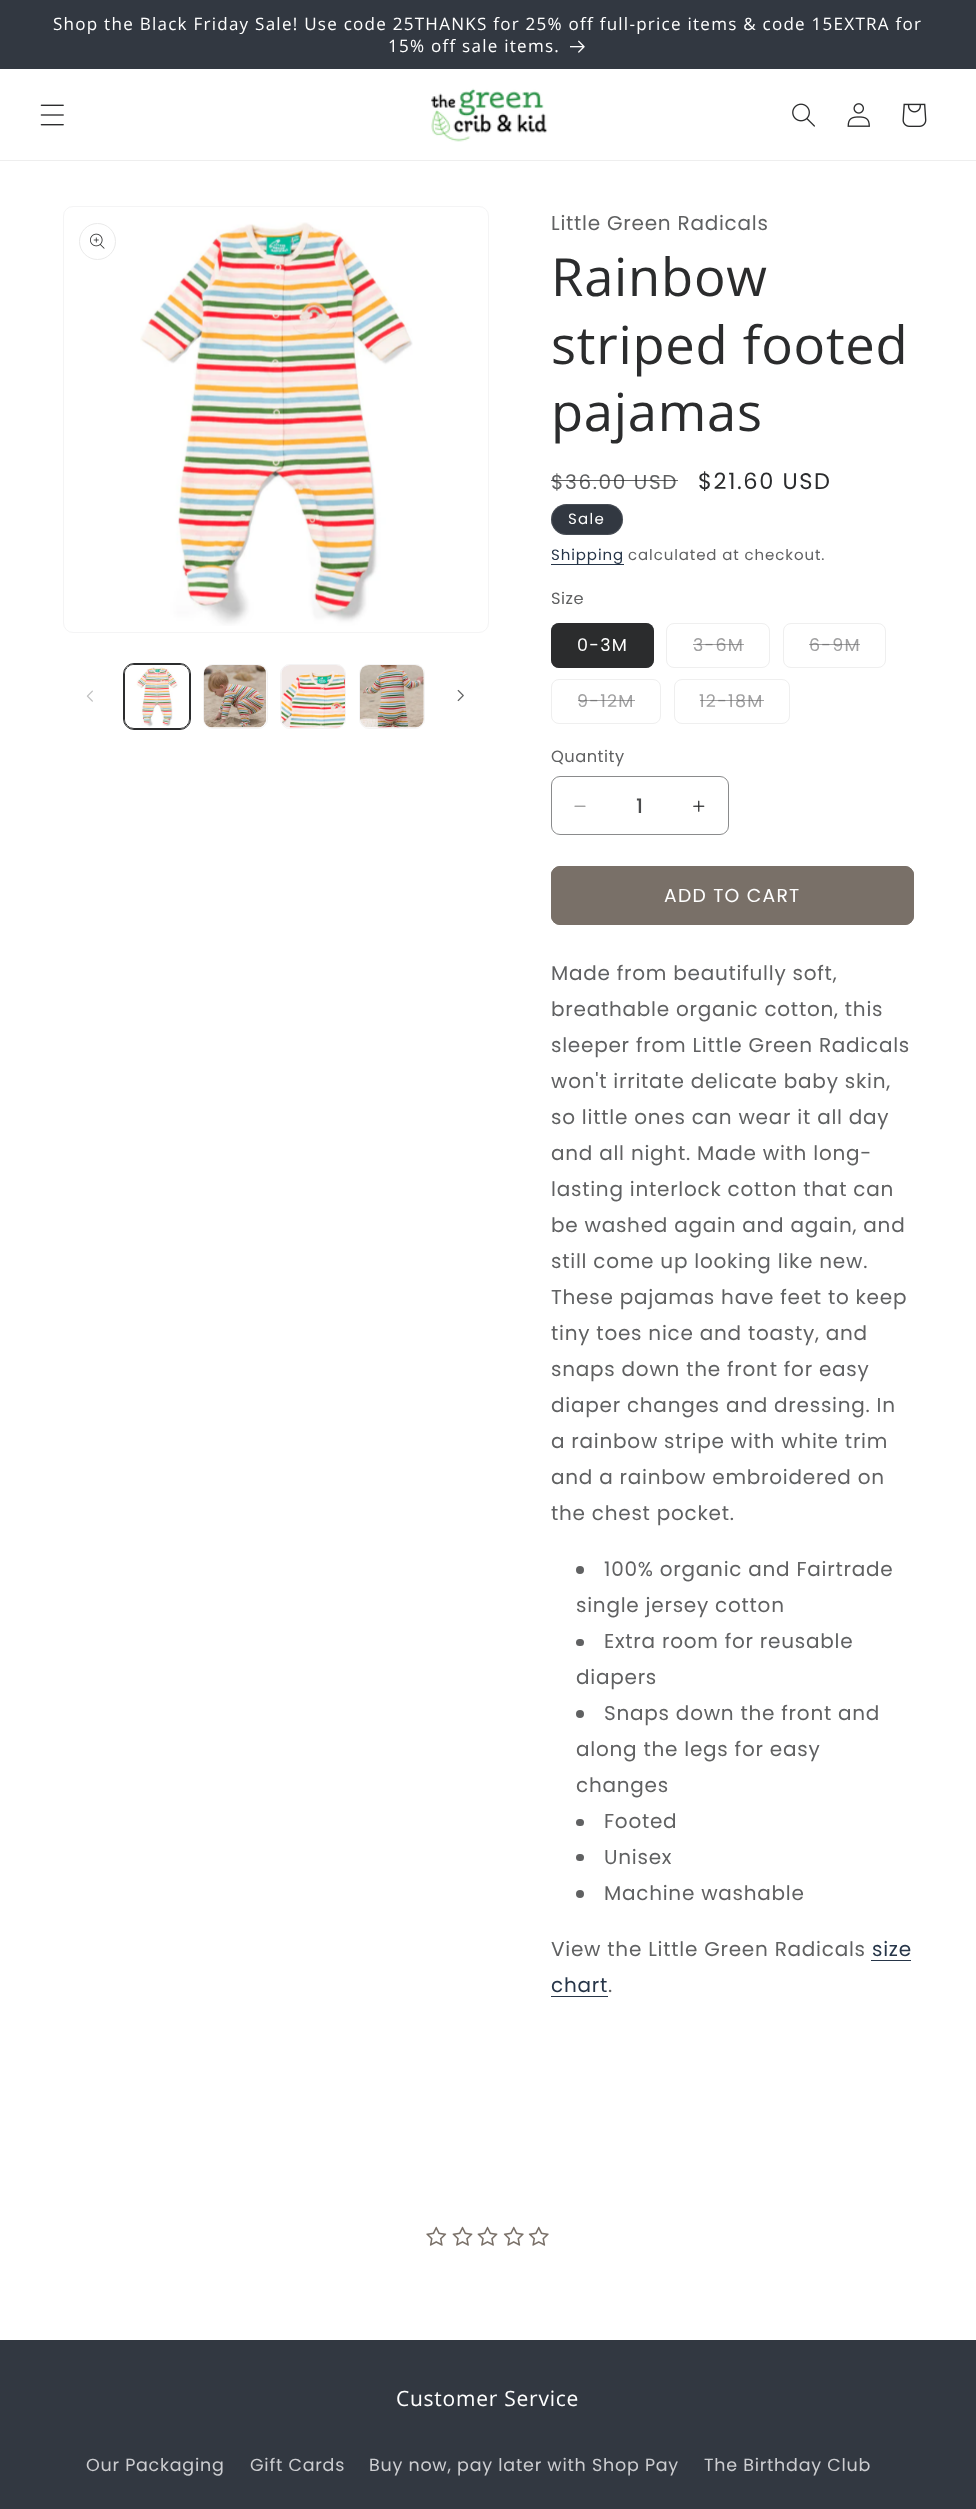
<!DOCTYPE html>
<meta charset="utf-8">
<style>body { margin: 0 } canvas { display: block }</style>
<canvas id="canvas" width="976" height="2509"></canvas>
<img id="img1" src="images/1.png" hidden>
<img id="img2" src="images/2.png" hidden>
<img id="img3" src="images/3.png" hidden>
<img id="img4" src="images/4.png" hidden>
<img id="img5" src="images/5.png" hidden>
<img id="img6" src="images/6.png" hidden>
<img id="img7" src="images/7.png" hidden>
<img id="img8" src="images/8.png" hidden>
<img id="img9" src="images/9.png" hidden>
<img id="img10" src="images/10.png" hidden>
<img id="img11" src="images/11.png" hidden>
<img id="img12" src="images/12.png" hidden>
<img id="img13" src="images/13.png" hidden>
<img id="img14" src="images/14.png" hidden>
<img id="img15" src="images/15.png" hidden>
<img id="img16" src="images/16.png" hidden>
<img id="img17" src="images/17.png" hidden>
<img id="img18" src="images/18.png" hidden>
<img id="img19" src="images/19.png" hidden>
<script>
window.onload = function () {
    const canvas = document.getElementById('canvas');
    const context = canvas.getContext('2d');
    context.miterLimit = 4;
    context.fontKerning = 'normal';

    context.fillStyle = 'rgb(255, 255, 255)';
    context.fillRect(0, 0, 976, 2509);
    context.fillStyle = 'rgb(50, 56, 65)';
    context.fillRect(0, 0, 976, 69);
    context.drawImage(document.getElementById('img1'), 570, 40, 15, 13);
    context.fillStyle = 'rgb(238, 238, 238)';
    context.fillRect(0, 160, 976, 1);
    context.drawImage(document.getElementById('img2'), 40, 104, 24, 22);
    context.drawImage(document.getElementById('img3'), 431, 88, 117, 54);
    context.drawImage(document.getElementById('img4'), 792, 103, 23, 24);
    context.drawImage(document.getElementById('img5'), 847, 103, 23, 24);
    context.drawImage(document.getElementById('img6'), 902, 103, 25, 24);
    context.beginPath();
    context.roundRect(63.5, 206.5, 425, 426, 9.5);
    context.strokeStyle = 'rgb(244, 244, 245)';
    context.stroke();
    context.beginPath();
    context.arc(97.5, 241.5, 18, 0, 2 * Math.PI);
    context.strokeStyle = 'rgb(234, 234, 234)';
    context.stroke();
    context.drawImage(document.getElementById('img7'), 90, 233, 15, 16);
    context.drawImage(document.getElementById('img8'), 140, 222, 273, 404);
    context.drawImage(document.getElementById('img9'), 86, 690, 7, 12);
    context.beginPath();
    context.roundRect(123.5, 663.5, 67, 66, 10.5);
    context.strokeStyle = 'rgb(43, 44, 45)';
    context.stroke();
    context.beginPath();
    context.roundRect(124.5, 664.5, 65, 64, 9.5);
    context.stroke();
    context.drawImage(document.getElementById('img10'), 125, 665, 64, 63);
    context.beginPath();
    context.roundRect(203.5, 664.5, 64, 64, 9.5);
    context.strokeStyle = 'rgb(244, 244, 245)';
    context.stroke();
    context.drawImage(document.getElementById('img11'), 203, 665, 64, 63);
    context.beginPath();
    context.roundRect(280.5, 664.5, 65, 64, 9.5);
    context.stroke();
    context.drawImage(document.getElementById('img12'), 281, 665, 64, 63);
    context.beginPath();
    context.roundRect(359.5, 664.5, 65, 64, 9.5);
    context.stroke();
    context.drawImage(document.getElementById('img13'), 360, 665, 64, 63);
    context.drawImage(document.getElementById('img14'), 457, 689, 7, 13);
    context.fillStyle = 'rgb(50, 56, 65)';
    context.beginPath();
    context.roundRect(551, 504, 72, 31, 15.5);
    context.fill();
    context.beginPath();
    context.roundRect(551.5, 504.5, 71, 30, 15);
    context.strokeStyle = 'rgba(255, 255, 255, 0.1)';
    context.stroke();
    context.fillStyle = 'rgb(38, 53, 72)';
    context.fillRect(551, 564, 73, 1);
    context.fillStyle = 'rgb(43, 44, 45)';
    context.beginPath();
    context.roundRect(551, 623, 103, 45, 8);
    context.fill();
    context.beginPath();
    context.roundRect(551.5, 623.5, 102, 44, 7.5);
    context.strokeStyle = 'rgba(43, 44, 45, 0.55)';
    context.stroke();
    context.beginPath();
    context.roundRect(666.5, 623.5, 103, 44, 7.5);
    context.strokeStyle = 'rgb(239, 239, 239)';
    context.stroke();
    context.beginPath();
    context.roundRect(783.5, 623.5, 102, 44, 7.5);
    context.stroke();
    context.beginPath();
    context.roundRect(551.5, 679.5, 109, 44, 7.5);
    context.stroke();
    context.beginPath();
    context.roundRect(674.5, 679.5, 115, 44, 7.5);
    context.stroke();
    context.drawImage(document.getElementById('img15'), 574, 805, 12, 2);
    context.drawImage(document.getElementById('img16'), 693, 800, 12, 12);
    context.beginPath();
    context.roundRect(551.5, 776.5, 177, 58, 8.5);
    context.strokeStyle = 'rgb(138, 139, 140)';
    context.stroke();
    context.fillStyle = 'rgb(121, 112, 104)';
    context.beginPath();
    context.roundRect(551, 866, 363, 59, 9);
    context.fill();
    context.beginPath();
    context.roundRect(551.5, 866.5, 362, 58, 8.5);
    context.strokeStyle = 'rgb(121, 112, 104)';
    context.stroke();
    context.fillStyle = 'rgb(96, 97, 98)';
    context.beginPath();
    context.arc(580, 1570, 4, 0, 2 * Math.PI);
    context.fill();
    context.beginPath();
    context.roundRect(576, 1639, 8, 7, 3.5);
    context.fill();
    context.beginPath();
    context.arc(580, 1714, 4, 0, 2 * Math.PI);
    context.fill();
    context.beginPath();
    context.roundRect(576, 1819, 8, 7, 3.5);
    context.fill();
    context.beginPath();
    context.roundRect(576, 1854, 8, 7, 3.5);
    context.fill();
    context.beginPath();
    context.arc(580, 1894, 4, 0, 2 * Math.PI);
    context.fill();
    context.fillStyle = 'rgb(38, 53, 72)';
    context.fillRect(871, 1960, 40, 1);
    context.fillRect(551, 1996, 57, 1);
    context.drawImage(document.getElementById('img17'), 426, 2226, 21, 20);
    context.drawImage(document.getElementById('img18'), 452, 2226, 21, 20);
    context.drawImage(document.getElementById('img18'), 477, 2226, 21, 20);
    context.drawImage(document.getElementById('img19'), 503, 2226, 21, 20);
    context.drawImage(document.getElementById('img19'), 528, 2226, 21, 20);
    context.fillStyle = 'rgb(50, 56, 65)';
    context.fillRect(0, 2340, 976, 169);
    context.letterSpacing = '1.25px';
    context.font = '17.05px Open Sans';
    context.fillStyle = 'rgb(255, 255, 255)';
    context.fillText('Shop the Black Friday Sale! Use code 25THANKS for 25% off full-price items & code 15EXTRA for', 53, 30);
    context.fillText('15% off sale items.', 388, 52);
    context.letterSpacing = '0.75px';
    context.font = '20px Poppins';
    context.fillStyle = 'rgb(96, 97, 98)';
    context.fillText('Little Green Radicals', 551, 230);
    context.font = '52.5px Open Sans';
    context.fillStyle = 'rgb(43, 44, 45)';
    context.fillText('Rainbow', 551, 296);
    context.fillText('striped footed', 551, 364);
    context.fillText('pajamas', 551, 431);
    context.letterSpacing = '1.6px';
    context.font = '20px Poppins';
    context.fillStyle = 'rgb(96, 97, 98)';
    context.fillText('$36.00 USD', 551, 489);
    context.fillStyle = 'rgba(43, 44, 45, 0.75)';
    context.fillRect(551, 480, 127, 1);
    context.font = '22.5px Poppins';
    context.fillStyle = 'rgb(43, 44, 45)';
    context.fillText('$21.60 USD', 698, 489);
    context.letterSpacing = '1.25px';
    context.font = '15px Poppins';
    context.fillStyle = 'rgb(255, 255, 255)';
    context.fillText('Sale', 568, 524);
    context.letterSpacing = '0.9px';
    context.fillStyle = 'rgb(38, 53, 72)';
    context.fillText('Shipping', 551, 560);
    context.fillStyle = 'rgb(96, 97, 98)';
    context.fillText('calculated at checkout.', 628, 560);
    context.letterSpacing = '0.5px';
    context.font = '16.25px Poppins';
    context.fillText('Size', 551, 604);
    context.letterSpacing = '1.25px';
    context.font = '17.5px Poppins';
    context.fillStyle = 'rgb(255, 255, 255)';
    context.fillText('0-3M', 577, 651);
    context.fillStyle = 'rgb(160, 160, 161)';
    context.fillText('3-6M', 693, 651);
    context.fillStyle = 'rgba(96, 97, 98, 0.6)';
    context.fillRect(693, 644, 51, 1);
    context.fillStyle = 'rgb(160, 160, 161)';
    context.fillText('6-9M', 809, 651);
    context.fillStyle = 'rgba(96, 97, 98, 0.6)';
    context.fillRect(809, 644, 51, 1);
    context.fillStyle = 'rgb(160, 160, 161)';
    context.fillText('9-12M', 577, 707);
    context.fillStyle = 'rgba(96, 97, 98, 0.6)';
    context.fillRect(578, 700, 57, 1);
    context.fillStyle = 'rgb(160, 160, 161)';
    context.fillText('12-18M', 699, 707);
    context.fillStyle = 'rgba(96, 97, 98, 0.6)';
    context.fillRect(700, 700, 64, 1);
    context.letterSpacing = '0.5px';
    context.font = '16.25px Poppins';
    context.fillStyle = 'rgb(96, 97, 98)';
    context.fillText('Quantity', 551, 762);
    context.letterSpacing = '0px';
    context.font = '500 20px Poppins';
    context.fillStyle = 'rgb(75, 76, 77)';
    context.fillText('1', 636, 813);
    context.letterSpacing = '1.25px';
    context.font = '18.75px Poppins';
    context.fillStyle = 'rgb(255, 255, 255)';
    context.fillText('ADD TO CART', 664, 902);
    context.letterSpacing = '0.75px';
    context.font = '20px Poppins';
    context.fillStyle = 'rgb(96, 97, 98)';
    context.fillText('Made from beautifully soft,', 551, 980);
    context.fillText('breathable organic cotton, this', 551, 1016);
    context.fillText('sleeper from Little Green Radicals', 551, 1052);
    context.fillText('won\'t irritate delicate baby skin,', 551, 1088);
    context.fillText('so little ones can wear it all day', 551, 1124);
    context.fillText('and all night. Made with long-', 551, 1160);
    context.fillText('lasting interlock cotton that can', 551, 1196);
    context.fillText('be washed again and again, and', 551, 1232);
    context.fillText('still come up looking like new.', 551, 1268);
    context.fillText('These pajamas have feet to keep', 551, 1304);
    context.fillText('tiny toes nice and toasty, and', 551, 1340);
    context.fillText('snaps down the front for easy', 551, 1376);
    context.fillText('diaper changes and dressing. In', 551, 1412);
    context.fillText('a rainbow stripe with white trim', 551, 1448);
    context.fillText('and a rainbow embroidered on', 551, 1484);
    context.fillText('the chest pocket.', 551, 1520);
    context.fillText('100% organic and Fairtrade', 604, 1576);
    context.fillText('single jersey cotton', 576, 1612);
    context.fillText('Extra room for reusable', 604, 1648);
    context.fillText('diapers', 576, 1684);
    context.fillText('Snaps down the front and', 604, 1720);
    context.fillText('along the legs for easy', 576, 1756);
    context.fillText('changes', 576, 1792);
    context.fillText('Footed', 604, 1828);
    context.fillText('Unisex', 604, 1864);
    context.fillText('Machine washable', 604, 1900);
    context.fillText('View the Little Green Radicals', 551, 1956);
    context.fillStyle = 'rgb(38, 53, 72)';
    context.fillText('size', 872, 1956);
    context.fillText('chart', 551, 1992);
    context.fillStyle = 'rgb(96, 97, 98)';
    context.fillText('.', 608, 1992);
    context.font = '21px Open Sans';
    context.fillStyle = 'rgb(255, 255, 255)';
    context.fillText('Customer Service', 396, 2406);
    context.font = '17.5px Poppins';
    context.fillStyle = 'rgb(204, 205, 208)';
    context.fillText('Our Packaging', 86, 2471);
    context.fillText('Gift Cards', 250, 2471);
    context.fillText('Buy now, pay later with Shop Pay', 369, 2471);
    context.fillText('The Birthday Club', 704, 2471);
};
</script>
